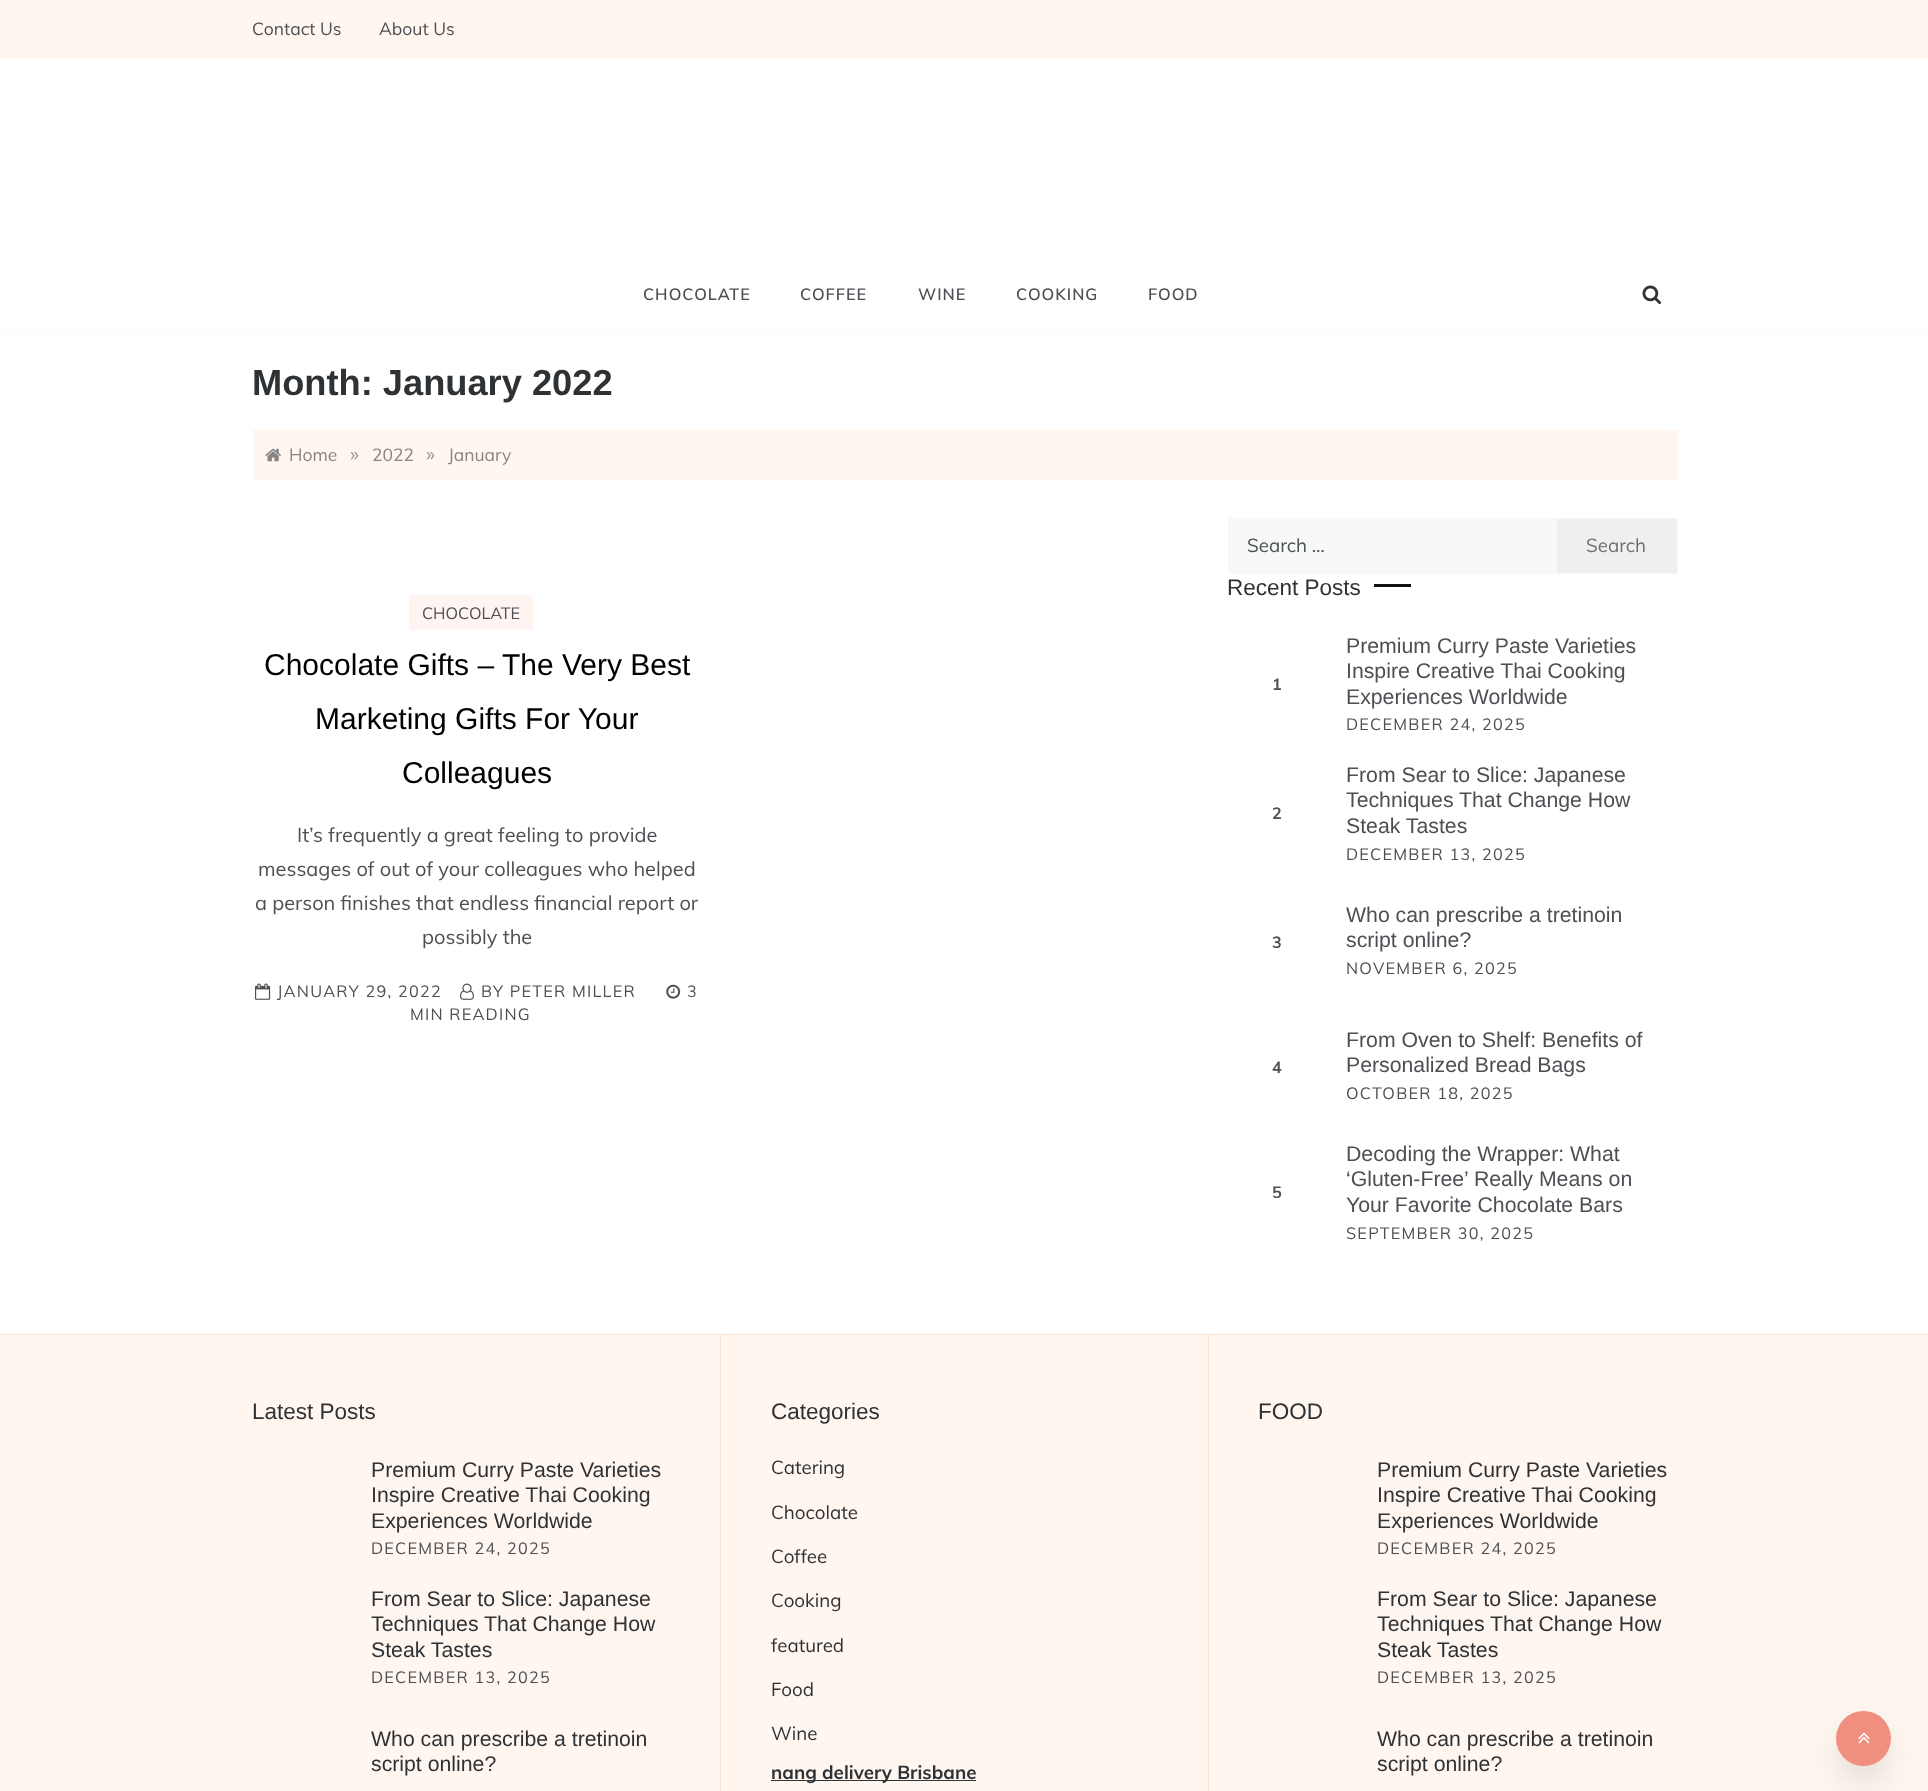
<!DOCTYPE html>
<meta charset="utf-8">
<style>body { margin: 0 } canvas { display: block }</style>
<canvas id="canvas" width="1928" height="1791"></canvas>
<img id="img1" src="images/1.png" hidden>
<img id="img2" src="images/2.png" hidden>
<img id="img3" src="images/3.png" hidden>
<img id="img4" src="images/4.png" hidden>
<img id="img5" src="images/5.png" hidden>
<img id="img6" src="images/6.png" hidden>
<script>
window.onload = function () {
    const canvas = document.getElementById('canvas');
    const context = canvas.getContext('2d');
    context.miterLimit = 4;
    context.fontKerning = 'normal';

    context.fillStyle = 'rgb(255, 255, 255)';
    context.fillRect(0, 0, 1928, 1791);
    context.fillStyle = 'rgb(255, 246, 239)';
    context.fillRect(0, 0, 1928, 58);
    context.fillStyle = 'rgb(250, 250, 250)';
    context.fillRect(0, 58, 1928, 1);
    context.fillRect(0, 331, 1928, 1);
    context.drawImage(document.getElementById('img1'), 1642, 285, 20, 20);
    context.fillStyle = 'rgb(255, 246, 239)';
    context.fillRect(253, 430, 1425, 50);
    context.drawImage(document.getElementById('img2'), 265, 448, 16, 14);
    context.fillStyle = 'rgb(254, 244, 242)';
    context.beginPath();
    context.roundRect(409, 595, 124, 35, 2.5);
    context.fill();
    context.drawImage(document.getElementById('img3'), 255, 983, 16, 17);
    context.drawImage(document.getElementById('img4'), 460, 983, 14, 17);
    context.drawImage(document.getElementById('img5'), 666, 984, 15, 15);
    context.fillStyle = 'rgb(247, 248, 248)';
    context.fillRect(1228, 518, 328, 56);
    context.fillStyle = 'rgb(239, 239, 239)';
    context.beginPath();
    context.rect(1556.5, 518.5, 121, 55);
    context.fill();
    context.strokeStyle = 'rgb(247, 248, 248)';
    context.stroke();
    context.fillStyle = 'rgb(17, 17, 17)';
    context.fillRect(1374, 584, 37, 3);
    context.fillStyle = 'rgb(255, 246, 239)';
    context.fillRect(0, 1335, 1928, 456);
    context.fillStyle = 'rgb(248, 228, 212)';
    context.fillRect(0, 1334, 1928, 1);
    context.fillRect(720, 1335, 1, 456);
    context.fillRect(1208, 1335, 1, 456);
    context.fillStyle = 'rgb(51, 51, 51)';
    context.fillRect(771, 1780, 205, 1);
    context.fillStyle = 'rgba(14, 17, 20, 0.15)';
    context.filter = 'blur(17.5px)';
    context.beginPath();
    context.roundRect(1841, 1734, 45, 45, 22.5);
    context.fill();
    context.filter = 'none';
    context.fillStyle = 'rgb(240, 142, 128)';
    context.beginPath();
    context.arc(1863.5, 1738.5, 27.5, 0, 2 * Math.PI);
    context.fill();
    context.drawImage(document.getElementById('img6'), 1858, 1732, 12, 12);
    context.font = '17.5px Muli';
    context.fillStyle = 'rgb(76, 79, 83)';
    context.fillText('Contact Us', 252, 35);
    context.fillText('About Us', 379, 35);
    context.letterSpacing = '1px';
    context.font = '600 16.25px Muli';
    context.fillText('CHOCOLATE', 643, 300);
    context.fillText('COFFEE', 800, 300);
    context.fillText('WINE', 918, 300);
    context.fillText('COOKING', 1016, 300);
    context.fillText('FOOD', 1148, 300);
    context.letterSpacing = '0px';
    context.font = 'bold 36.25px Liberation Sans';
    context.fillStyle = 'rgb(47, 50, 53)';
    context.fillText('Month: January 2022', 252, 395);
    context.font = '17.5px Muli';
    context.fillStyle = 'rgb(133, 133, 133)';
    context.fillText('Home', 289, 461);
    context.font = '20px Muli';
    context.fillStyle = 'rgb(141, 151, 161)';
    context.fillText('»', 350, 461);
    context.font = '17.5px Muli';
    context.fillStyle = 'rgb(133, 133, 133)';
    context.fillText('2022', 372, 461);
    context.font = '20px Muli';
    context.fillStyle = 'rgb(141, 151, 161)';
    context.fillText('»', 426, 461);
    context.font = '17.5px Muli';
    context.fillStyle = 'rgb(133, 133, 133)';
    context.fillText('January', 448, 461);
    context.font = '16.25px Muli';
    context.fillStyle = 'rgb(76, 79, 83)';
    context.fillText('CHOCOLATE', 422, 619);
    context.font = '30px Liberation Sans';
    context.fillStyle = 'rgb(0, 0, 0)';
    context.fillText('Chocolate Gifts – The Very Best', 264, 675);
    context.fillText('Marketing Gifts For Your', 315, 729);
    context.fillText('Colleagues', 402, 783);
    context.font = '20px Muli';
    context.fillStyle = 'rgb(76, 79, 83)';
    context.fillText('It’s frequently a great feeling to provide', 297, 842);
    context.fillText('messages of out of your colleagues who helped', 258, 876);
    context.fillText('a person finishes that endless financial report or', 255, 910);
    context.fillText('possibly the', 422, 944);
    context.letterSpacing = '1.25px';
    context.font = '16.25px Muli';
    context.fillText('JANUARY 29, 2022', 277, 997);
    context.fillText('BY PETER MILLER', 481, 997);
    context.fillText('3', 687, 997);
    context.fillText('MIN READING', 410, 1020);
    context.letterSpacing = '0px';
    context.font = '18.75px Muli';
    context.fillText('Search …', 1247, 552);
    context.fillStyle = 'rgb(111, 111, 111)';
    context.fillText('Search', 1586, 552);
    context.font = '22.5px Liberation Sans';
    context.fillStyle = 'rgb(47, 50, 53)';
    context.fillText('Recent Posts', 1227, 595);
    context.font = 'bold 16.25px Muli';
    context.fillStyle = 'rgb(76, 79, 83)';
    context.fillText('1', 1272, 690);
    context.font = '21.25px Liberation Sans';
    context.fillText('Premium Curry Paste Varieties', 1346, 653);
    context.fillText('Inspire Creative Thai Cooking', 1346, 678);
    context.fillText('Experiences Worldwide', 1346, 704);
    context.letterSpacing = '1.25px';
    context.font = '16.25px Muli';
    context.fillText('DECEMBER 24, 2025', 1346, 730);
    context.letterSpacing = '0px';
    context.font = 'bold 16.25px Muli';
    context.fillText('2', 1272, 819);
    context.font = '21.25px Liberation Sans';
    context.fillText('From Sear to Slice: Japanese', 1346, 782);
    context.fillText('Techniques That Change How', 1346, 807);
    context.fillText('Steak Tastes', 1346, 833);
    context.letterSpacing = '1.25px';
    context.font = '16.25px Muli';
    context.fillText('DECEMBER 13, 2025', 1346, 860);
    context.letterSpacing = '0px';
    context.font = 'bold 16.25px Muli';
    context.fillText('3', 1272, 948);
    context.font = '21.25px Liberation Sans';
    context.fillText('Who can prescribe a tretinoin', 1346, 922);
    context.fillText('script online?', 1346, 947);
    context.letterSpacing = '1.25px';
    context.font = '16.25px Muli';
    context.fillText('NOVEMBER 6, 2025', 1346, 974);
    context.letterSpacing = '0px';
    context.font = 'bold 16.25px Muli';
    context.fillText('4', 1272, 1073);
    context.font = '21.25px Liberation Sans';
    context.fillText('From Oven to Shelf: Benefits of', 1346, 1047);
    context.fillText('Personalized Bread Bags', 1346, 1072);
    context.letterSpacing = '1.25px';
    context.font = '16.25px Muli';
    context.fillText('OCTOBER 18, 2025', 1346, 1099);
    context.letterSpacing = '0px';
    context.font = 'bold 16.25px Muli';
    context.fillText('5', 1272, 1198);
    context.font = '21.25px Liberation Sans';
    context.fillText('Decoding the Wrapper: What', 1346, 1161);
    context.fillText('‘Gluten-Free’ Really Means on', 1346, 1186);
    context.fillText('Your Favorite Chocolate Bars', 1346, 1212);
    context.letterSpacing = '1.25px';
    context.font = '16.25px Muli';
    context.fillText('SEPTEMBER 30, 2025', 1346, 1239);
    context.letterSpacing = '0px';
    context.font = '22.5px Liberation Sans';
    context.fillStyle = 'rgb(47, 50, 53)';
    context.fillText('Latest Posts', 252, 1419);
    context.font = '21.25px Liberation Sans';
    context.fillText('Premium Curry Paste Varieties', 371, 1477);
    context.fillText('Inspire Creative Thai Cooking', 371, 1502);
    context.fillText('Experiences Worldwide', 371, 1528);
    context.letterSpacing = '1.25px';
    context.font = '16.25px Muli';
    context.fillStyle = 'rgb(76, 79, 83)';
    context.fillText('DECEMBER 24, 2025', 371, 1554);
    context.letterSpacing = '0px';
    context.font = '21.25px Liberation Sans';
    context.fillStyle = 'rgb(47, 50, 53)';
    context.fillText('From Sear to Slice: Japanese', 371, 1606);
    context.fillText('Techniques That Change How', 371, 1631);
    context.fillText('Steak Tastes', 371, 1657);
    context.letterSpacing = '1.25px';
    context.font = '16.25px Muli';
    context.fillStyle = 'rgb(76, 79, 83)';
    context.fillText('DECEMBER 13, 2025', 371, 1683);
    context.letterSpacing = '0px';
    context.font = '21.25px Liberation Sans';
    context.fillStyle = 'rgb(47, 50, 53)';
    context.fillText('Who can prescribe a tretinoin', 371, 1746);
    context.fillText('script online?', 371, 1771);
    context.font = '22.5px Liberation Sans';
    context.fillText('Categories', 771, 1419);
    context.font = '18.75px Muli';
    context.fillText('Catering', 771, 1474);
    context.fillText('Chocolate', 771, 1519);
    context.fillText('Coffee', 771, 1563);
    context.fillText('Cooking', 771, 1607);
    context.fillText('featured', 771, 1652);
    context.fillText('Food', 771, 1696);
    context.fillText('Wine', 771, 1740);
    context.font = 'bold 18.75px Muli';
    context.fillText('nang delivery Brisbane', 771, 1779);
    context.font = '22.5px Liberation Sans';
    context.fillText('FOOD', 1258, 1419);
    context.font = '21.25px Liberation Sans';
    context.fillText('Premium Curry Paste Varieties', 1377, 1477);
    context.fillText('Inspire Creative Thai Cooking', 1377, 1502);
    context.fillText('Experiences Worldwide', 1377, 1528);
    context.letterSpacing = '1.25px';
    context.font = '16.25px Muli';
    context.fillStyle = 'rgb(76, 79, 83)';
    context.fillText('DECEMBER 24, 2025', 1377, 1554);
    context.letterSpacing = '0px';
    context.font = '21.25px Liberation Sans';
    context.fillStyle = 'rgb(47, 50, 53)';
    context.fillText('From Sear to Slice: Japanese', 1377, 1606);
    context.fillText('Techniques That Change How', 1377, 1631);
    context.fillText('Steak Tastes', 1377, 1657);
    context.letterSpacing = '1.25px';
    context.font = '16.25px Muli';
    context.fillStyle = 'rgb(76, 79, 83)';
    context.fillText('DECEMBER 13, 2025', 1377, 1683);
    context.letterSpacing = '0px';
    context.font = '21.25px Liberation Sans';
    context.fillStyle = 'rgb(47, 50, 53)';
    context.fillText('Who can prescribe a tretinoin', 1377, 1746);
    context.fillText('script online?', 1377, 1771);
};
</script>
